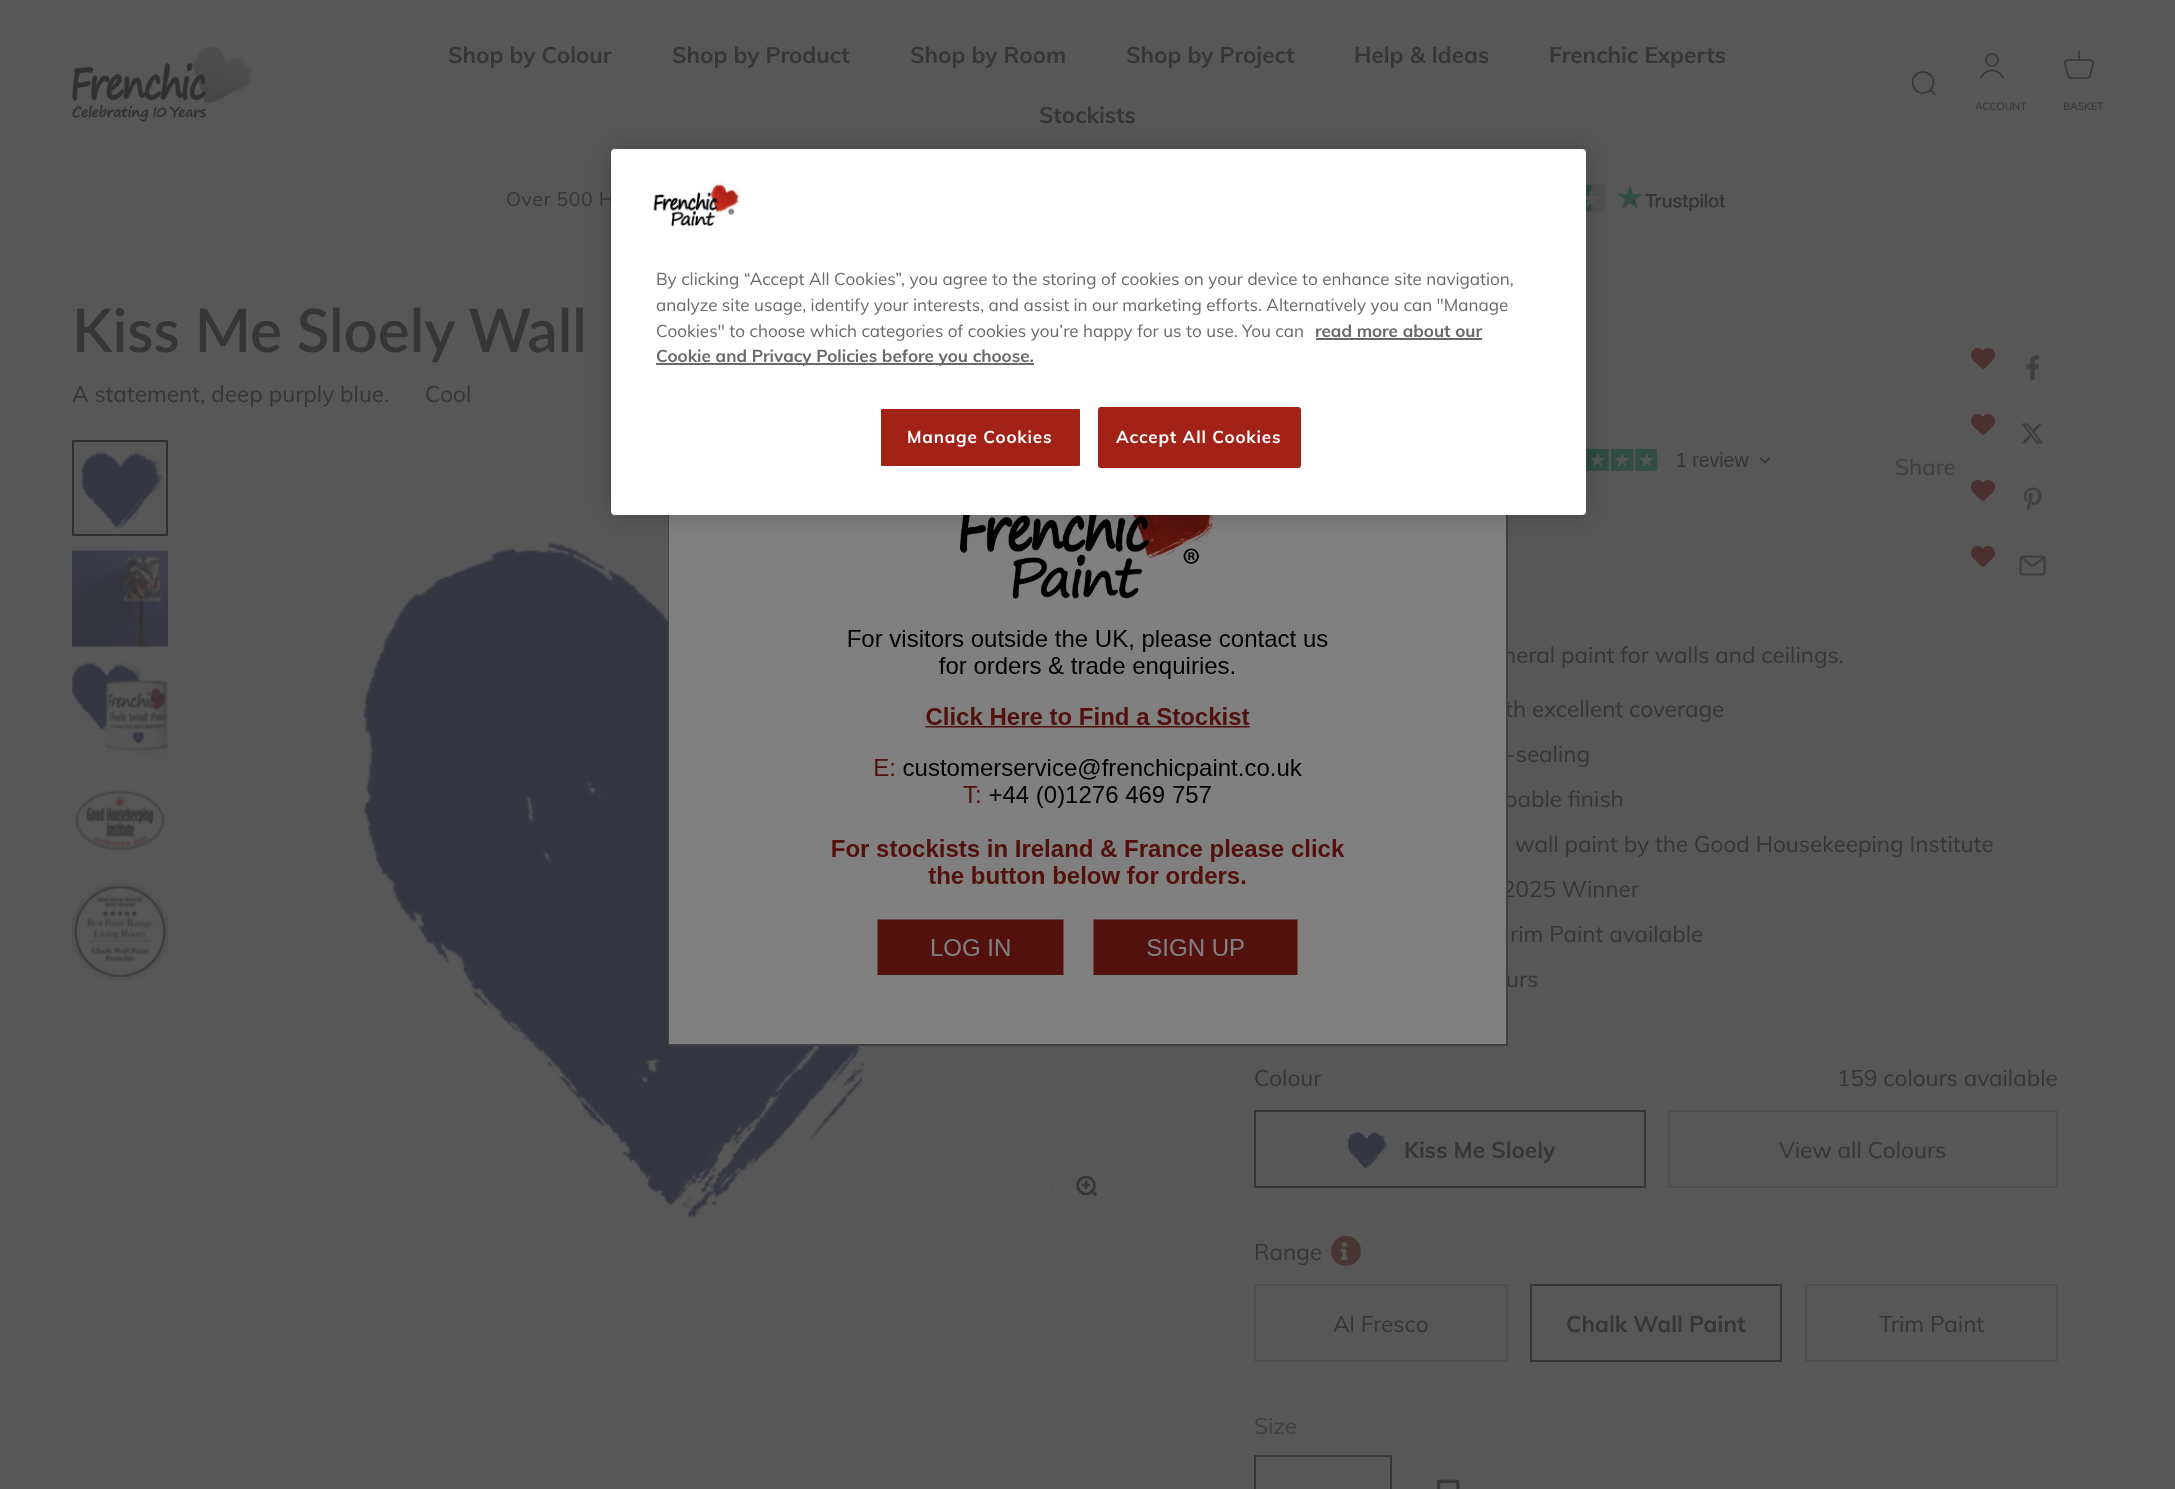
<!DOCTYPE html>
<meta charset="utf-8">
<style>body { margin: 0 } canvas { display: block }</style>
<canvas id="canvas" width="2175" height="1489"></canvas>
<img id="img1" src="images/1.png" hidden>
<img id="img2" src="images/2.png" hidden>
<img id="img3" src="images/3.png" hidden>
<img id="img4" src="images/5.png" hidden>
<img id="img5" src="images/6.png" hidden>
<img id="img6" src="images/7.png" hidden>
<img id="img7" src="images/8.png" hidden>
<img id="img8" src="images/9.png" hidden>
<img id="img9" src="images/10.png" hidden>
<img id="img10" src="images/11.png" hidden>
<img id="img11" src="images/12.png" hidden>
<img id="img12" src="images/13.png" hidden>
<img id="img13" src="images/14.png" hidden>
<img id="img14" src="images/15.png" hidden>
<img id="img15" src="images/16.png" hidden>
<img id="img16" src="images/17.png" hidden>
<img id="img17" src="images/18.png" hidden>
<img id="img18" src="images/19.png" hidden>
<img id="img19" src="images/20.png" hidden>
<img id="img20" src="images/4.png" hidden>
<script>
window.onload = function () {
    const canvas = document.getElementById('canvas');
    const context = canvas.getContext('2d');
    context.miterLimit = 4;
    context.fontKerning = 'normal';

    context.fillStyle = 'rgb(87, 87, 87)';
    context.fillRect(0, 0, 2175, 1489);
    context.drawImage(document.getElementById('img1'), 72, 46, 180, 76);
    context.beginPath();
    context.arc(1923, 82.5, 10.5, 0, 2 * Math.PI);
    context.strokeStyle = 'rgb(54, 54, 54)';
    context.lineWidth = 1.5;
    context.stroke();
    context.beginPath();
    context.moveTo(1930.5, 90);
    context.lineTo(1935, 94.5);
    context.lineCap = 'round';
    context.lineJoin = 'round';
    context.stroke();
    context.beginPath();
    context.arc(1992, 60, 6, 0, 2 * Math.PI);
    context.stroke();
    context.beginPath();
    context.moveTo(1981, 78);
    context.bezierCurveTo(1985.5, 68, 1998.5, 68, 2003, 78);
    context.lineJoin = 'miter';
    context.stroke();
    context.drawImage(document.getElementById('img2'), 2064, 50, 30, 29);
    context.drawImage(document.getElementById('img3'), 1586, 184, 139, 28);
    context.strokeStyle = 'rgb(49, 49, 49)';
    context.lineWidth = 2;
    context.strokeRect(73, 441, 94, 94);
    context.drawImage(document.getElementById('img4'), 80, 449, 83, 81);
    context.drawImage(document.getElementById('img5'), 72, 550, 96, 97);
    context.drawImage(document.getElementById('img6'), 72, 661, 96, 97);
    context.drawImage(document.getElementById('img7'), 74, 789, 92, 65);
    context.drawImage(document.getElementById('img8'), 72, 883, 96, 97);
    context.drawImage(document.getElementById('img9'), 363, 542, 503, 676);
    context.beginPath();
    context.arc(1086.5, 1186.5, 34, 0, 2 * Math.PI);
    context.strokeStyle = 'rgb(83, 83, 83)';
    context.lineWidth = 1;
    context.stroke();
    context.beginPath();
    context.arc(1087, 1186, 34, 0, 2 * Math.PI);
    context.fill();
    context.save();
    context.beginPath();
    context.rect(1076, 1176, 21, 21);
    context.clip();
    context.beginPath();
    context.arc(1086, 1185.5, 8.5, 0, 2 * Math.PI);
    context.strokeStyle = 'rgb(54, 54, 54)';
    context.lineWidth = 2.7;
    context.stroke();
    context.restore();
    context.beginPath();
    context.moveTo(1092, 1191);
    context.lineTo(1095.5, 1194.5);
    context.strokeStyle = 'rgb(54, 54, 54)';
    context.lineWidth = 2.7;
    context.lineJoin = 'round';
    context.stroke();
    context.beginPath();
    context.moveTo(1086, 1181);
    context.lineTo(1086, 1189);
    context.moveTo(1082, 1185);
    context.lineTo(1090, 1185);
    context.lineCap = 'butt';
    context.lineJoin = 'miter';
    context.stroke();
    context.drawImage(document.getElementById('img10'), 1586, 448, 184, 23);
    context.drawImage(document.getElementById('img11'), 1971, 348, 24, 21);
    context.drawImage(document.getElementById('img12'), 2026, 355, 14, 25);
    context.drawImage(document.getElementById('img11'), 1971, 414, 24, 21);
    context.drawImage(document.getElementById('img13'), 2021, 423, 23, 21);
    context.drawImage(document.getElementById('img11'), 1971, 480, 24, 21);
    context.drawImage(document.getElementById('img14'), 2023, 487, 19, 25);
    context.drawImage(document.getElementById('img11'), 1971, 546, 24, 21);
    context.drawImage(document.getElementById('img15'), 2019, 555, 27, 21);
    context.lineWidth = 2;
    context.strokeRect(1255, 1111, 390, 76);
    context.drawImage(document.getElementById('img16'), 1347, 1131, 40, 38);
    context.strokeStyle = 'rgb(79, 79, 79)';
    context.strokeRect(1669, 1111, 388, 76);
    context.fillStyle = 'rgb(73, 54, 52)';
    context.beginPath();
    context.arc(1346, 1251, 15, 0, 2 * Math.PI);
    context.fill();
    context.drawImage(document.getElementById('img17'), 1341, 1242, 7, 18);
    context.strokeRect(1255, 1285, 252, 76);
    context.strokeStyle = 'rgb(54, 54, 54)';
    context.strokeRect(1531, 1285, 250, 76);
    context.strokeStyle = 'rgb(79, 79, 79)';
    context.strokeRect(1806, 1285, 251, 76);
    context.strokeStyle = 'rgb(54, 54, 54)';
    context.strokeRect(1255, 1456, 136, 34);
    context.drawImage(document.getElementById('img18'), 1437, 1479, 23, 10);
    context.font = 'bold 22.5px Muli';
    context.fillStyle = 'rgb(54, 54, 54)';
    context.fillText('Shop by Colour', 448, 63);
    context.fillText('Shop by Product', 672, 63);
    context.fillText('Shop by Room', 910, 63);
    context.fillText('Shop by Project', 1126, 63);
    context.fillText('Help & Ideas', 1354, 63);
    context.fillText('Frenchic Experts', 1549, 63);
    context.fillText('Stockists', 1039, 123);
    context.font = '10.5px Muli';
    context.fillText('ACCOUNT', 1975, 110);
    context.fillText('BASKET', 2063, 110);
    context.letterSpacing = '0.5px';
    context.font = '19.5px Muli';
    context.fillText('Over 500 H', 506, 206);
    context.letterSpacing = '0px';
    context.font = '600 60px Lato';
    context.fillText('Kiss Me Sloely Wall', 72, 352);
    context.font = '22.5px Muli';
    context.fillText('A statement, deep purply blue.', 72, 402);
    context.fillText('Cool', 425, 402);
    context.fillStyle = 'rgb(64, 64, 64)';
    context.fillText('Share', 1895, 475);
    context.fillStyle = 'rgb(54, 54, 54)';
    context.fillText('neral paint for walls and ceilings.', 1503, 663);
    context.fillText('th excellent coverage', 1505, 717);
    context.fillText('-sealing', 1506, 762);
    context.fillText('bable finish', 1504, 807);
    context.fillText('wall paint by the Good Housekeeping Institute', 1515, 852);
    context.fillText('2025 Winner', 1502, 897);
    context.fillText('rim Paint available', 1510, 942);
    context.fillText('urs', 1506, 987);
    context.fillText('Colour', 1254, 1086);
    context.fillText('159 colours available', 1837, 1086);
    context.font = 'bold 22.5px Muli';
    context.fillText('Kiss Me Sloely', 1404, 1158);
    context.font = '22.5px Muli';
    context.fillText('View all Colours', 1779, 1158);
    context.fillText('Range', 1254, 1260);
    context.fillText('Al Fresco', 1333, 1332);
    context.font = 'bold 22.5px Muli';
    context.fillText('Chalk Wall Paint', 1566, 1332);
    context.font = '22.5px Muli';
    context.fillText('Trim Paint', 1879, 1332);
    context.fillStyle = 'rgb(64, 64, 64)';
    context.fillText('Size', 1254, 1434);
    context.strokeStyle = 'rgb(64, 64, 64)';
    context.strokeRect(669, 447, 838, 598);
    context.drawImage(document.getElementById('img19'), 669, 515, 837, 529);
    context.fillStyle = 'rgba(0, 0, 0, 0.2)';
    context.filter = 'blur(13.5px)';
    context.beginPath();
    context.roundRect(611, 149, 975, 366, 4);
    context.fill();
    context.filter = 'none';
    context.fillStyle = 'rgb(255, 255, 255)';
    context.beginPath();
    context.roundRect(611, 149, 975, 366, 4);
    context.fill();
    context.fillStyle = 'rgb(162, 34, 24)';
    context.beginPath();
    context.roundRect(880, 408, 201, 59, 2);
    context.fill();
    context.strokeStyle = 'rgb(255, 255, 255)';
    context.stroke();
    context.letterSpacing = '0.8px';
    context.font = 'bold 17.07px Muli';
    context.fillStyle = 'rgb(255, 255, 255)';
    context.fillText('Manage Cookies', 907, 443);
    context.fillStyle = 'rgb(162, 34, 24)';
    context.beginPath();
    context.roundRect(1099, 408, 201, 59, 2);
    context.fill();
    context.strokeStyle = 'rgb(162, 34, 24)';
    context.stroke();
    context.fillStyle = 'rgb(255, 255, 255)';
    context.fillText('Accept All Cookies', 1116, 443);
    context.drawImage(document.getElementById('img20'), 653, 179, 88, 50);
    context.fillStyle = 'rgb(105, 105, 105)';
    context.fillRect(656, 363, 378, 2);
    context.letterSpacing = '0px';
    context.fillText('Cookie and Privacy Policies before you choose.', 656, 362);
    context.fillText('read more about our', 1315, 337);
    context.fillRect(1316, 338, 166, 2);
    context.font = '17.07px Muli';
    context.fillText('Cookies" to choose which categories of cookies you’re happy for us to use. You can', 656, 337);
    context.fillText('analyze site usage, identify your interests, and assist in our marketing efforts. Alternatively you can "Manage', 656, 311);
    context.fillText('By clicking “Accept All Cookies”, you agree to the storing of cookies on your device to enhance site navigation,', 656, 285);
};
</script>
